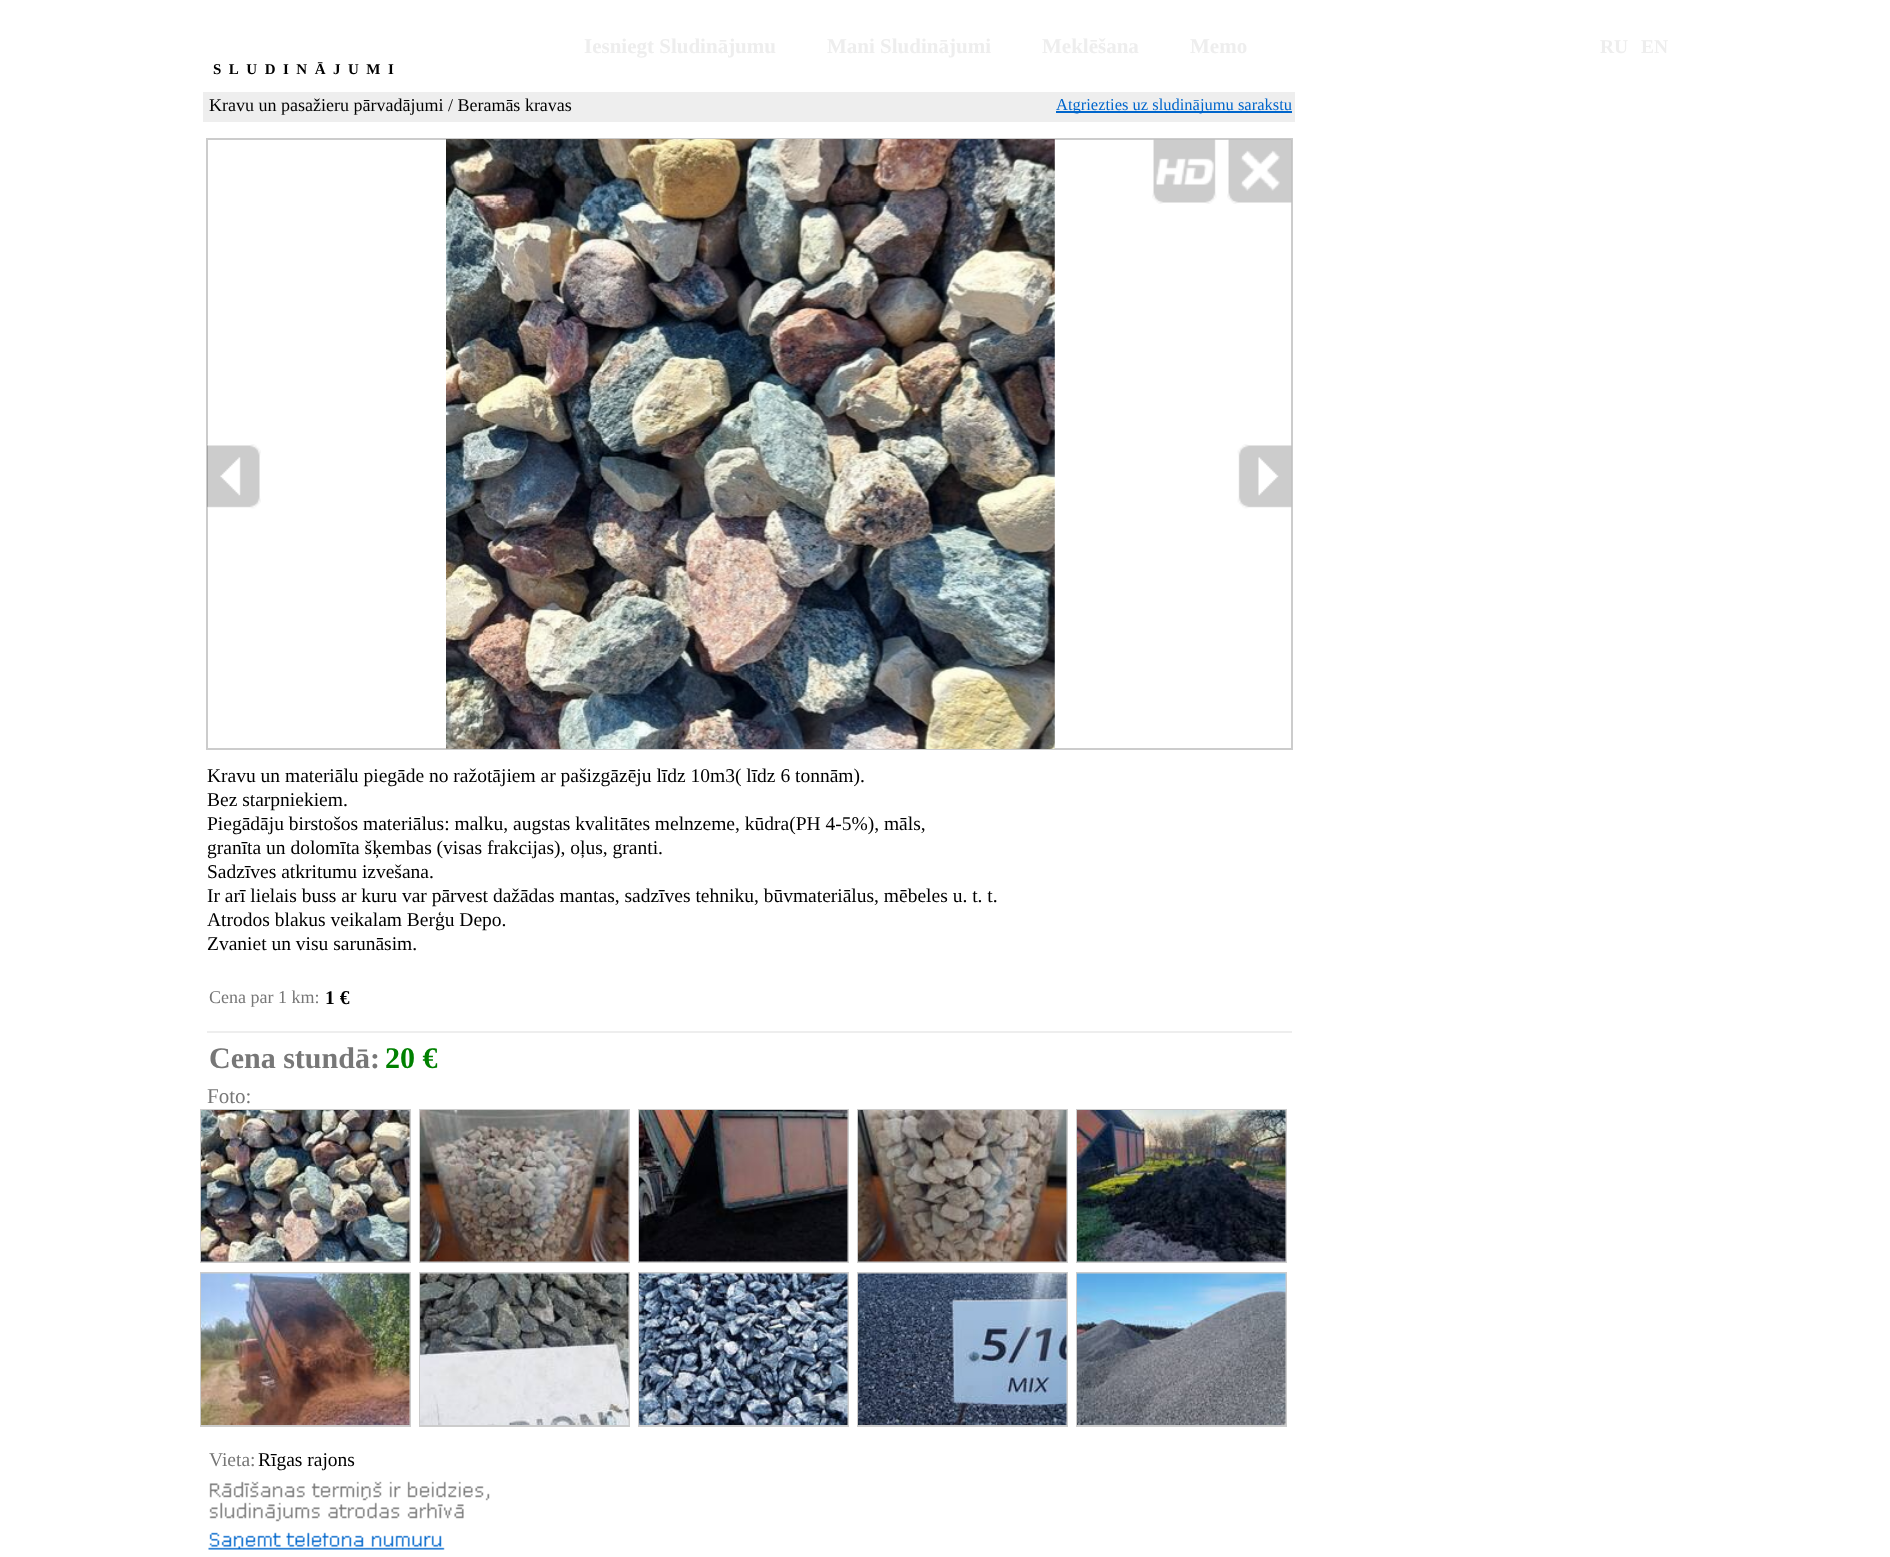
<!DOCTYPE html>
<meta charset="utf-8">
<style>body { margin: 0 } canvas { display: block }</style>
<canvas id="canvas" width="1890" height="1557"></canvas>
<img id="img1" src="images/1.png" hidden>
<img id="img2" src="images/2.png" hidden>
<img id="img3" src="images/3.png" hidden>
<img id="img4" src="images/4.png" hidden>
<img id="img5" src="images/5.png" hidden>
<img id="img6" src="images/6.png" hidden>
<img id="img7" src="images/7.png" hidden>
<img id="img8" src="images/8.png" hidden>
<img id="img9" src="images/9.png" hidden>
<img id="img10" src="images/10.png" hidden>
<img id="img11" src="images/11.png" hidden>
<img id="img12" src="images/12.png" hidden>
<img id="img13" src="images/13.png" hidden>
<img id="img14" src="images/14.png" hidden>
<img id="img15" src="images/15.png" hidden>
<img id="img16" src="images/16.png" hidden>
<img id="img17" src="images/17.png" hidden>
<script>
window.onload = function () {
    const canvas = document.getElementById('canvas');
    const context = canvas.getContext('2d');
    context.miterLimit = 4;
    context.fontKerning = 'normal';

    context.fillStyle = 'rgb(255, 255, 255)';
    context.fillRect(0, 0, 1890, 1557);
    context.fillStyle = 'rgb(238, 238, 238)';
    context.fillRect(203, 92, 1092, 30);
    context.fillStyle = 'rgb(0, 102, 204)';
    context.fillRect(1056, 111, 236, 2);
    context.strokeStyle = 'rgb(204, 204, 204)';
    context.lineWidth = 2;
    context.strokeRect(207, 139, 1085, 610);
    context.drawImage(document.getElementById('img1'), 446, 139, 609, 610);
    context.drawImage(document.getElementById('img2'), 1152, 139, 65, 65);
    context.drawImage(document.getElementById('img3'), 1227, 139, 65, 65);
    context.drawImage(document.getElementById('img4'), 207, 444, 54, 65);
    context.drawImage(document.getElementById('img5'), 1237, 444, 55, 65);
    context.fillStyle = 'rgb(238, 238, 238)';
    context.fillRect(207, 1031, 1085, 2);
    context.strokeRect(201, 1110, 209, 152);
    context.drawImage(document.getElementById('img6'), 201, 1110, 209, 152);
    context.strokeRect(420, 1110, 209, 152);
    context.drawImage(document.getElementById('img7'), 420, 1110, 209, 152);
    context.strokeRect(639, 1110, 209, 152);
    context.drawImage(document.getElementById('img8'), 639, 1110, 209, 152);
    context.strokeRect(858, 1110, 209, 152);
    context.drawImage(document.getElementById('img9'), 858, 1110, 209, 152);
    context.strokeRect(1077, 1110, 209, 152);
    context.drawImage(document.getElementById('img10'), 1077, 1110, 209, 152);
    context.strokeRect(201, 1273, 209, 153);
    context.drawImage(document.getElementById('img11'), 201, 1273, 209, 152);
    context.strokeRect(420, 1273, 209, 153);
    context.drawImage(document.getElementById('img12'), 420, 1273, 209, 152);
    context.strokeRect(639, 1273, 209, 153);
    context.drawImage(document.getElementById('img13'), 639, 1273, 209, 152);
    context.strokeRect(858, 1273, 209, 153);
    context.drawImage(document.getElementById('img14'), 858, 1273, 209, 152);
    context.strokeRect(1077, 1273, 209, 153);
    context.drawImage(document.getElementById('img15'), 1077, 1273, 209, 152);
    context.drawImage(document.getElementById('img16'), 209, 1481, 281, 41);
    context.drawImage(document.getElementById('img17'), 208, 1532, 237, 18);
    context.font = 'bold 21px Liberation Serif';
    context.fillText('Iesniegt Sludinājumu', 584, 53);
    context.fillText('Mani Sludinājumi', 827, 53);
    context.fillText('Meklēšana', 1042, 53);
    context.fillText('Memo', 1190, 53);
    context.font = 'bold 19.5px Liberation Serif';
    context.fillText('RU', 1600, 53);
    context.fillText('EN', 1641, 53);
    context.letterSpacing = '7.5px';
    context.font = 'bold 15px Liberation Serif';
    context.fillStyle = 'rgb(0, 0, 0)';
    context.fillText('SLUDINĀJUMI', 213, 74);
    context.letterSpacing = '0px';
    context.font = '18px Liberation Serif';
    context.fillText('Kravu un pasažieru pārvadājumi / Beramās kravas', 209, 111);
    context.font = '16.5px Liberation Serif';
    context.fillStyle = 'rgb(0, 102, 204)';
    context.fillText('Atgriezties uz sludinājumu sarakstu', 1056, 110);
    context.font = '19.5px Liberation Serif';
    context.fillStyle = 'rgb(0, 0, 0)';
    context.fillText('Kravu un materiālu piegāde no ražotājiem ar pašizgāzēju līdz 10m3( līdz 6 tonnām).', 207, 782);
    context.fillText('Bez starpniekiem.', 207, 806);
    context.fillText('Piegādāju birstošos materiālus: malku, augstas kvalitātes melnzeme, kūdra(PH 4-5%), māls,', 207, 830);
    context.fillText('granīta un dolomīta šķembas (visas frakcijas), oļus, granti.', 207, 854);
    context.fillText('Sadzīves atkritumu izvešana.', 207, 878);
    context.fillText('Ir arī lielais buss ar kuru var pārvest dažādas mantas, sadzīves tehniku, būvmateriālus, mēbeles u. t. t.', 207, 902);
    context.fillText('Atrodos blakus veikalam Berģu Depo.', 207, 926);
    context.fillText('Zvaniet un visu sarunāsim.', 207, 950);
    context.font = '18px Liberation Serif';
    context.fillStyle = 'rgb(119, 119, 119)';
    context.fillText('Cena par 1 km:', 209, 1003);
    context.font = 'bold 19.5px Liberation Serif';
    context.fillStyle = 'rgb(0, 0, 0)';
    context.fillText('1 €', 325, 1004);
    context.font = 'bold 30px Liberation Serif';
    context.fillStyle = 'rgb(119, 119, 119)';
    context.fillText('Cena stundā:', 209, 1068);
    context.fillStyle = 'rgb(0, 128, 0)';
    context.fillText('20 €', 385, 1068);
    context.font = '21px Liberation Serif';
    context.fillStyle = 'rgb(119, 119, 119)';
    context.fillText('Foto:', 207, 1103);
    context.font = '19.5px Liberation Serif';
    context.fillText('Vieta:', 209, 1466);
    context.fillStyle = 'rgb(0, 0, 0)';
    context.fillText('Rīgas rajons', 258, 1466);
};
</script>
